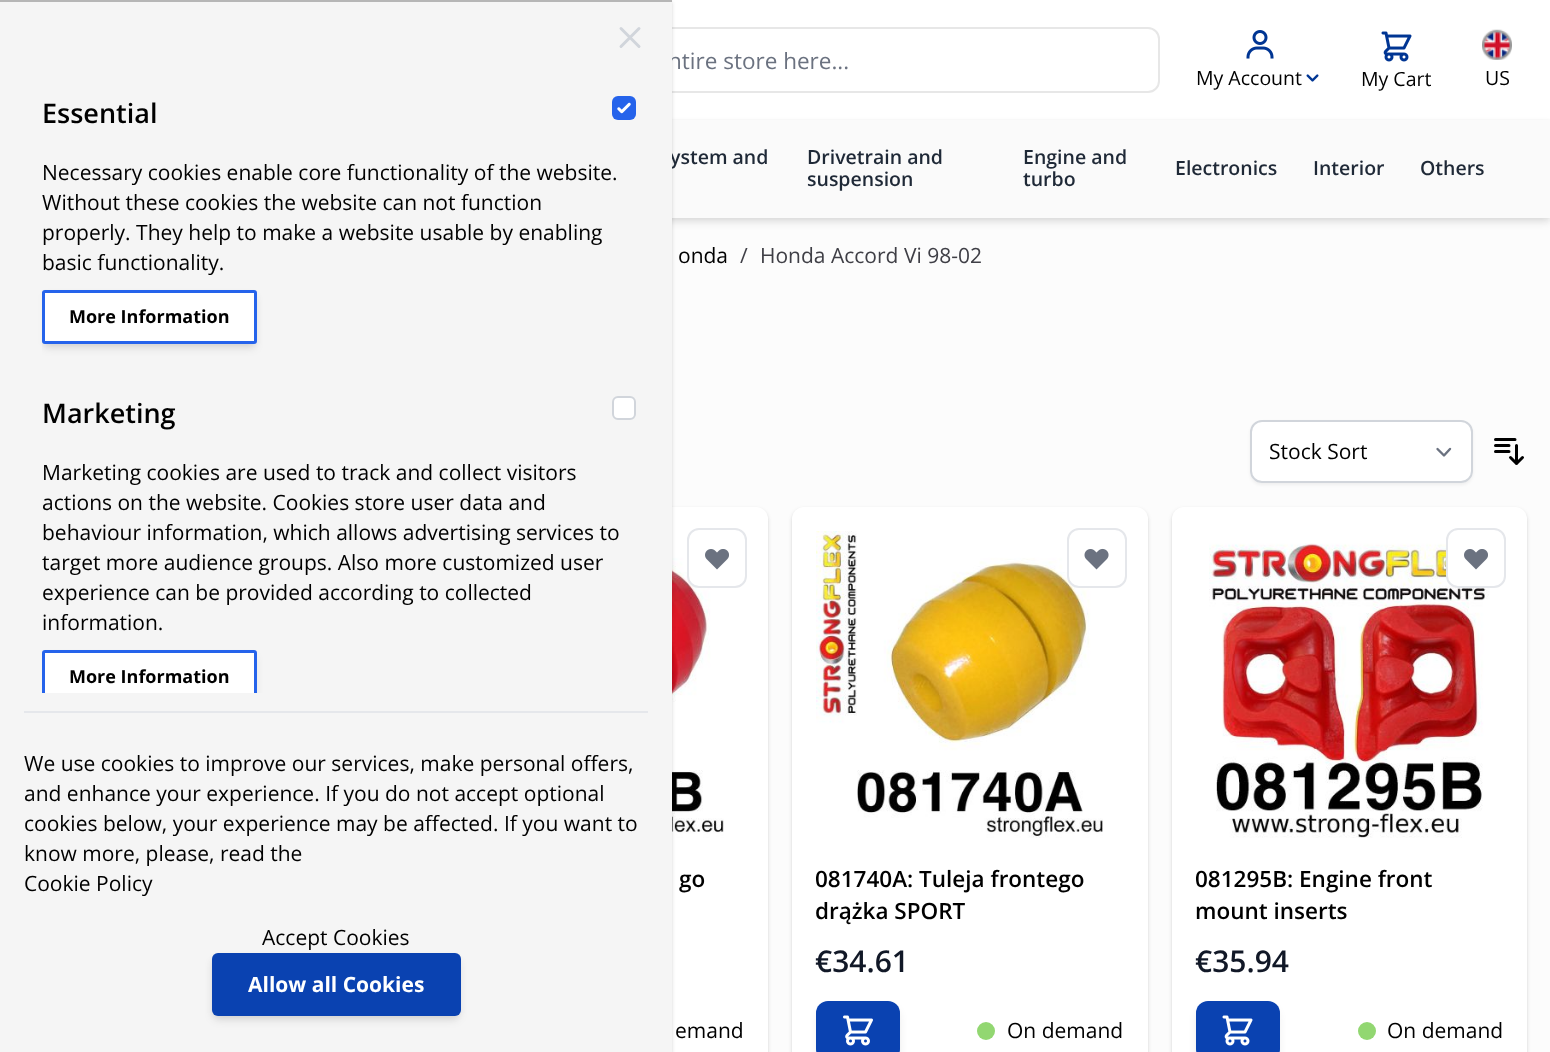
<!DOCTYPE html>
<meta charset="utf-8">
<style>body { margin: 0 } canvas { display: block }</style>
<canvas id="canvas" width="1550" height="1052"></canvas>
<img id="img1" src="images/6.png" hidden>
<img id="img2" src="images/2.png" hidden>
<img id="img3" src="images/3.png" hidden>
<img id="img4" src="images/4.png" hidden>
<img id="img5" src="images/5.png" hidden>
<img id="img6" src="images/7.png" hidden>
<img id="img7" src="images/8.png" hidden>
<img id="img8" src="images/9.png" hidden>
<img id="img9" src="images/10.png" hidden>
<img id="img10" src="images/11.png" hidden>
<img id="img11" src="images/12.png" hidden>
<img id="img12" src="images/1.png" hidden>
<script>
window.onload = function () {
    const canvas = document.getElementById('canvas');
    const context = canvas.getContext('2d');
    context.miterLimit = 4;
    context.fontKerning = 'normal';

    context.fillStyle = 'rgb(252, 252, 252)';
    context.fillRect(0, 0, 1550, 1052);
    context.fillStyle = 'rgb(255, 255, 255)';
    context.fillRect(672, 0, 878, 119);
    context.beginPath();
    context.roundRect(559, 28, 600, 64, 11);
    context.strokeStyle = 'rgb(231, 231, 231)';
    context.lineWidth = 2;
    context.stroke();
    context.fillStyle = 'rgba(0, 0, 0, 0.06)';
    context.filter = 'blur(3px)';
    context.beginPath();
    context.rect(2, 123, 1548, 96);
    context.fill();
    context.filter = 'none';
    context.fillStyle = 'rgba(0, 0, 0, 0.1)';
    context.filter = 'blur(4.5px)';
    context.beginPath();
    context.rect(2, 126, 1548, 96);
    context.fill();
    context.filter = 'none';
    context.fillStyle = 'rgb(250, 250, 250)';
    context.fillRect(672, 120, 878, 98);
    context.fillStyle = 'rgba(0, 0, 0, 0.06)';
    context.filter = 'blur(1.5px)';
    context.beginPath();
    context.roundRect(413, 509, 355, 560, 12);
    context.fill();
    context.filter = 'none';
    context.fillStyle = 'rgba(0, 0, 0, 0.1)';
    context.filter = 'blur(2px)';
    context.beginPath();
    context.roundRect(413, 509, 355, 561, 12);
    context.fill();
    context.filter = 'none';
    context.fillStyle = 'rgb(255, 255, 255)';
    context.beginPath();
    context.roundRect(413, 507, 355, 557, 12);
    context.fill();
    context.drawImage(document.getElementById('img1'), 672, 531, 52, 307);
    context.fillStyle = 'rgba(0, 0, 0, 0.06)';
    context.filter = 'blur(1.5px)';
    context.beginPath();
    context.rect(0, 2, 672, 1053);
    context.fill();
    context.filter = 'none';
    context.fillStyle = 'rgba(0, 0, 0, 0.1)';
    context.filter = 'blur(2px)';
    context.beginPath();
    context.rect(0, 2, 672, 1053);
    context.fill();
    context.filter = 'none';
    context.fillStyle = 'rgb(182, 182, 182)';
    context.fillRect(0, 0, 672, 2);
    context.drawImage(document.getElementById('img2'), 1246, 30, 28, 29);
    context.drawImage(document.getElementById('img3'), 1306, 74, 13, 8);
    context.drawImage(document.getElementById('img4'), 1381, 31, 31, 31);
    context.drawImage(document.getElementById('img5'), 1482, 29, 30, 31);
    context.fillStyle = 'rgba(0, 0, 0, 0.05)';
    context.filter = 'blur(1.5px)';
    context.beginPath();
    context.roundRect(1250, 422, 223, 63, 12);
    context.fill();
    context.filter = 'none';
    context.fillStyle = 'rgb(255, 255, 255)';
    context.beginPath();
    context.roundRect(1250, 420, 223, 63, 12);
    context.fill();
    context.beginPath();
    context.moveTo(1437.5, 449);
    context.lineTo(1444, 455.5);
    context.lineTo(1450, 449);
    context.strokeStyle = 'rgb(107, 114, 128)';
    context.lineWidth = 2.4;
    context.lineCap = 'round';
    context.lineJoin = 'round';
    context.stroke();
    context.beginPath();
    context.roundRect(1251, 421, 221, 61, 11);
    context.strokeStyle = 'rgb(209, 213, 219)';
    context.lineWidth = 2;
    context.lineJoin = 'miter';
    context.stroke();
    context.beginPath();
    context.moveTo(1495.5, 439.5);
    context.lineTo(1515, 439.5);
    context.moveTo(1495.5, 445.5);
    context.lineTo(1509, 445.5);
    context.moveTo(1495.5, 451.5);
    context.lineTo(1509, 451.5);
    context.moveTo(1516.5, 445.5);
    context.lineTo(1516.5, 463.5);
    context.moveTo(1516.5, 463.5);
    context.lineTo(1510.5, 457.5);
    context.moveTo(1516.5, 463.5);
    context.lineTo(1522.5, 457.5);
    context.strokeStyle = 'rgb(0, 0, 0)';
    context.lineWidth = 3;
    context.lineJoin = 'round';
    context.stroke();
    context.beginPath();
    context.roundRect(688, 529, 58, 58, 11);
    context.fill();
    context.strokeStyle = 'rgb(229, 231, 235)';
    context.lineWidth = 2;
    context.lineJoin = 'miter';
    context.stroke();
    context.drawImage(document.getElementById('img6'), 705, 549, 24, 21);
    context.fillStyle = 'rgba(0, 0, 0, 0.06)';
    context.filter = 'blur(1.5px)';
    context.beginPath();
    context.roundRect(792, 509, 356, 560, 12);
    context.fill();
    context.filter = 'none';
    context.fillStyle = 'rgba(0, 0, 0, 0.1)';
    context.filter = 'blur(2px)';
    context.beginPath();
    context.roundRect(792, 509, 356, 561, 12);
    context.fill();
    context.filter = 'none';
    context.fillStyle = 'rgb(255, 255, 255)';
    context.beginPath();
    context.roundRect(792, 507, 356, 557, 12);
    context.fill();
    context.drawImage(document.getElementById('img7'), 816, 531, 287, 307);
    context.beginPath();
    context.roundRect(1068, 529, 58, 58, 11);
    context.fill();
    context.stroke();
    context.drawImage(document.getElementById('img8'), 1084, 548, 25, 22);
    context.fillStyle = 'rgba(0, 0, 0, 0.1)';
    context.filter = 'blur(4.5px)';
    context.beginPath();
    context.roundRect(818, 1008, 81, 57, 11);
    context.fill();
    context.filter = 'none';
    context.fillStyle = 'rgb(10, 66, 177)';
    context.beginPath();
    context.roundRect(816, 1001, 84, 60, 12);
    context.fill();
    context.drawImage(document.getElementById('img9'), 843, 1015, 30, 31);
    context.fillStyle = 'rgb(146, 215, 113)';
    context.beginPath();
    context.arc(986, 1031, 9, 0, 2 * Math.PI);
    context.fill();
    context.fillStyle = 'rgba(0, 0, 0, 0.06)';
    context.filter = 'blur(1.5px)';
    context.beginPath();
    context.roundRect(1172, 509, 355, 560, 12);
    context.fill();
    context.filter = 'none';
    context.fillStyle = 'rgba(0, 0, 0, 0.1)';
    context.filter = 'blur(2px)';
    context.beginPath();
    context.roundRect(1172, 509, 355, 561, 12);
    context.fill();
    context.filter = 'none';
    context.fillStyle = 'rgb(255, 255, 255)';
    context.beginPath();
    context.roundRect(1172, 507, 355, 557, 12);
    context.fill();
    context.drawImage(document.getElementById('img10'), 1209, 543, 287, 295);
    context.beginPath();
    context.roundRect(1447, 529, 58, 58, 11);
    context.fill();
    context.stroke();
    context.drawImage(document.getElementById('img6'), 1464, 549, 24, 21);
    context.fillStyle = 'rgba(0, 0, 0, 0.1)';
    context.filter = 'blur(4.5px)';
    context.beginPath();
    context.roundRect(1197, 1008, 81, 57, 11);
    context.fill();
    context.filter = 'none';
    context.fillStyle = 'rgb(10, 66, 177)';
    context.beginPath();
    context.roundRect(1196, 1001, 84, 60, 12);
    context.fill();
    context.drawImage(document.getElementById('img11'), 1222, 1015, 31, 31);
    context.fillStyle = 'rgb(146, 215, 113)';
    context.beginPath();
    context.arc(1367, 1031, 9, 0, 2 * Math.PI);
    context.fill();
    context.font = '22.5px Open Sans';
    context.fillStyle = 'rgb(107, 114, 128)';
    context.fillText('ntire store here...', 668, 69);
    context.font = '19.5px Open Sans';
    context.fillStyle = 'rgb(0, 0, 0)';
    context.fillText('My Account', 1196, 85);
    context.fillText('My Cart', 1361, 86);
    context.fillText('US', 1485, 85);
    context.font = '600 19.5px Open Sans';
    context.fillStyle = 'rgb(31, 41, 55)';
    context.fillText('ystem and', 670, 164);
    context.fillStyle = 'rgb(245, 245, 245)';
    context.fillRect(0, 2, 672, 1050);
    context.fillStyle = 'rgb(229, 231, 235)';
    context.fillRect(24, 711, 624, 2);
    context.save();
    context.beginPath();
    context.rect(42, 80, 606, 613);
    context.clip();
    context.fillStyle = 'rgba(0, 0, 0, 0.1)';
    context.filter = 'blur(4.5px)';
    context.beginPath();
    context.roundRect(44, 657, 211, 51, 1.5);
    context.fill();
    context.filter = 'none';
    context.restore();
    context.fillStyle = 'rgb(255, 255, 255)';
    context.beginPath();
    context.roundRect(42, 650, 215, 43, [3, 3, 0, 0]);
    context.fill();
    context.save();
    context.beginPath();
    context.rect(42, 80, 606, 613);
    context.clip();
    context.beginPath();
    context.roundRect(43.5, 651.5, 212, 51, 1.5);
    context.strokeStyle = 'rgb(37, 99, 235)';
    context.lineWidth = 3;
    context.stroke();
    context.restore();
    context.font = 'bold 18px Open Sans';
    context.fillStyle = 'rgb(0, 0, 0)';
    context.fillText('More Information', 69, 683);
    context.font = '21px Open Sans';
    context.fillText('information.', 42, 630);
    context.fillText('experience can be provided according to collected', 42, 600);
    context.fillText('target more audience groups. Also more customized user', 42, 570);
    context.fillText('behaviour information, which allows advertising services to', 42, 540);
    context.fillText('actions on the website. Cookies store user data and', 42, 510);
    context.fillText('Marketing cookies are used to track and collect visitors', 42, 480);
    context.fillStyle = 'rgb(255, 255, 255)';
    context.beginPath();
    context.roundRect(613, 397, 22, 22, 5);
    context.fill();
    context.strokeStyle = 'rgb(209, 213, 219)';
    context.stroke();
    context.font = '600 27px Open Sans';
    context.fillStyle = 'rgb(0, 0, 0)';
    context.fillText('Marketing', 42, 423);
    context.save();
    context.beginPath();
    context.rect(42, 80, 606, 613);
    context.clip();
    context.fillStyle = 'rgba(0, 0, 0, 0.1)';
    context.filter = 'blur(4.5px)';
    context.beginPath();
    context.roundRect(44, 297, 211, 51, 1.5);
    context.fill();
    context.filter = 'none';
    context.restore();
    context.fillStyle = 'rgba(0, 0, 0, 0.06)';
    context.filter = 'blur(3px)';
    context.beginPath();
    context.roundRect(44, 294, 211, 51, 1.5);
    context.fill();
    context.filter = 'none';
    context.fillStyle = 'rgb(255, 255, 255)';
    context.beginPath();
    context.roundRect(43.5, 291.5, 212, 51, 1.5);
    context.fill();
    context.strokeStyle = 'rgb(37, 99, 235)';
    context.lineWidth = 3;
    context.stroke();
    context.font = 'bold 18px Open Sans';
    context.fillStyle = 'rgb(0, 0, 0)';
    context.fillText('More Information', 69, 323);
    context.font = '21px Open Sans';
    context.fillText('basic functionality.', 42, 270);
    context.fillText('properly. They help to make a website usable by enabling', 42, 240);
    context.fillText('Without these cookies the website can not function', 42, 210);
    context.fillText('Necessary cookies enable core functionality of the website.', 42, 180);
    context.fillStyle = 'rgb(37, 99, 235)';
    context.beginPath();
    context.roundRect(612, 96, 24, 24, 6);
    context.fill();
    context.drawImage(document.getElementById('img12'), 617, 102, 14, 12);
    context.font = '600 27px Open Sans';
    context.fillStyle = 'rgb(0, 0, 0)';
    context.fillText('Essential', 42, 123);
    context.beginPath();
    context.moveTo(621, 46.5);
    context.lineTo(639, 28.5);
    context.moveTo(621, 28.5);
    context.lineTo(639, 46.5);
    context.strokeStyle = 'rgb(209, 213, 219)';
    context.lineJoin = 'round';
    context.stroke();
    context.fillStyle = 'rgba(0, 0, 0, 0.1)';
    context.filter = 'blur(4.5px)';
    context.beginPath();
    context.roundRect(213, 960, 246, 60, 5);
    context.fill();
    context.filter = 'none';
    context.fillStyle = 'rgba(0, 0, 0, 0.06)';
    context.filter = 'blur(3px)';
    context.beginPath();
    context.roundRect(213, 957, 246, 60, 5);
    context.fill();
    context.filter = 'none';
    context.fillStyle = 'rgb(10, 66, 177)';
    context.beginPath();
    context.roundRect(212, 953, 249, 63, 6);
    context.fill();
    context.font = 'bold 21px Open Sans';
    context.fillStyle = 'rgb(255, 255, 255)';
    context.fillText('Allow all Cookies', 248, 992);
    context.font = '21px Open Sans';
    context.fillStyle = 'rgb(0, 0, 0)';
    context.fillText('Accept Cookies', 262, 945);
    context.fillText('Cookie Policy', 24, 891);
    context.fillText('know more, please, read the', 24, 861);
    context.fillText('cookies below, your experience may be affected. If you want to', 24, 831);
    context.fillText('and enhance your experience. If you do not accept optional', 24, 801);
    context.fillText('We use cookies to improve our services, make personal offers,', 24, 771);
    context.font = '600 19.5px Open Sans';
    context.fillStyle = 'rgb(31, 41, 55)';
    context.fillText('Drivetrain and', 807, 164);
    context.fillText('suspension', 807, 186);
    context.fillText('Engine and', 1023, 164);
    context.fillText('turbo', 1023, 186);
    context.fillText('Electronics', 1175, 175);
    context.fillText('Interior', 1313, 175);
    context.fillText('Others', 1420, 175);
    context.font = '21px Open Sans';
    context.fillStyle = 'rgb(0, 0, 0)';
    context.fillText('onda', 678, 263);
    context.fillStyle = 'rgb(63, 63, 70)';
    context.fillText('/', 740, 263);
    context.fillText('Honda Accord Vi 98-02', 760, 263);
    context.fillStyle = 'rgb(0, 0, 0)';
    context.fillText('Stock Sort', 1269, 459);
    context.font = '600 22.5px Open Sans';
    context.fillText('go', 679, 887);
    context.font = '21px Open Sans';
    context.fillText('emand', 675, 1038);
    context.font = '600 22.5px Open Sans';
    context.fillText('081740A: Tuleja frontego', 815, 887);
    context.fillText('drążka SPORT', 815, 919);
    context.font = '600 30px Open Sans';
    context.fillStyle = 'rgb(17, 24, 39)';
    context.fillText('€34.61', 815, 972);
    context.font = '21px Open Sans';
    context.fillStyle = 'rgb(0, 0, 0)';
    context.fillText('On demand', 1007, 1038);
    context.font = '600 22.5px Open Sans';
    context.fillText('081295B: Engine front', 1195, 887);
    context.fillText('mount inserts', 1195, 919);
    context.font = '600 30px Open Sans';
    context.fillStyle = 'rgb(17, 24, 39)';
    context.fillText('€35.94', 1195, 972);
    context.font = '21px Open Sans';
    context.fillStyle = 'rgb(0, 0, 0)';
    context.fillText('On demand', 1387, 1038);
};
</script>
